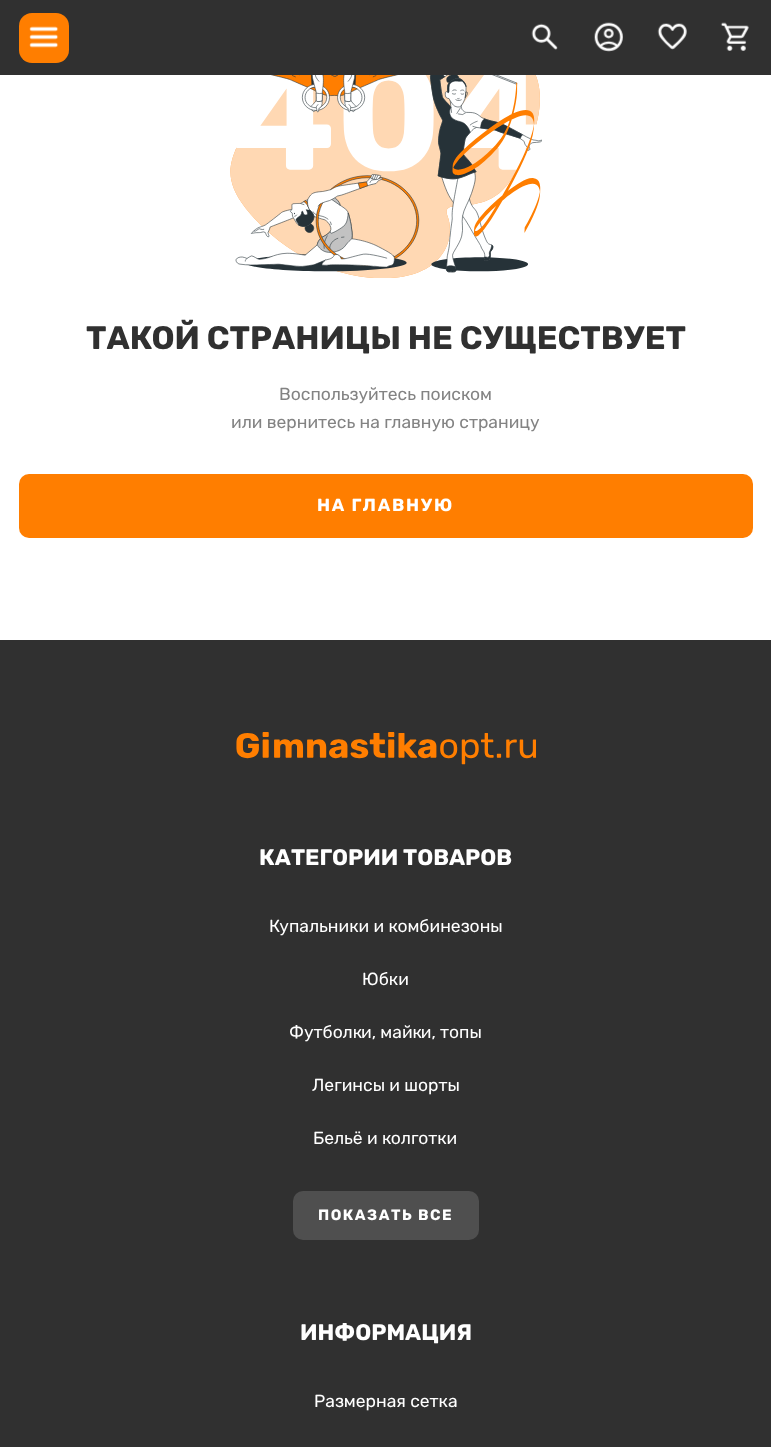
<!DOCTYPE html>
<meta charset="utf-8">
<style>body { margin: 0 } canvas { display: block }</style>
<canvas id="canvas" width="771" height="1447"></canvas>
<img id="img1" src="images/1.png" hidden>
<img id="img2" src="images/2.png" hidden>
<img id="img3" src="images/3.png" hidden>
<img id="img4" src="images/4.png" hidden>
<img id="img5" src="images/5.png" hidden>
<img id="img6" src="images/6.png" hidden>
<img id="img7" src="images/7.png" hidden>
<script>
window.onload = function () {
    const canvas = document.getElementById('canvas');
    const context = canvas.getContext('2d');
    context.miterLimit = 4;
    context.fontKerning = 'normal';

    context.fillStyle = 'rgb(255, 255, 255)';
    context.fillRect(0, 0, 771, 1447);
    context.fillStyle = 'rgb(48, 48, 48)';
    context.fillRect(0, 0, 771, 75);
    context.fillStyle = 'rgb(255, 126, 0)';
    context.beginPath();
    context.roundRect(19, 13, 50, 50, 13);
    context.fill();
    context.drawImage(document.getElementById('img1'), 29, 26, 30, 22);
    context.drawImage(document.getElementById('img2'), 531, 23, 27, 27);
    context.drawImage(document.getElementById('img3'), 594, 22, 29, 30);
    context.drawImage(document.getElementById('img4'), 657, 23, 30, 27);
    context.drawImage(document.getElementById('img5'), 720, 22, 29, 29);
    context.drawImage(document.getElementById('img6'), 230, 75, 312, 203);
    context.beginPath();
    context.roundRect(19, 474, 734, 64, 10);
    context.fill();
    context.fillStyle = 'rgb(48, 48, 48)';
    context.fillRect(0, 640, 771, 807);
    context.drawImage(document.getElementById('img7'), 236, 732, 300, 33);
    context.fillStyle = 'rgb(79, 79, 79)';
    context.beginPath();
    context.roundRect(293, 1191, 186, 49, 10);
    context.fill();
    context.font = 'bold 32.5px Rubik';
    context.fillStyle = 'rgb(48, 48, 48)';
    context.fillText('ТАКОЙ СТРАНИЦЫ НЕ СУЩЕСТВУЕТ', 86, 349);
    context.font = '17.5px Rubik';
    context.fillStyle = 'rgb(131, 131, 131)';
    context.fillText('Воспользуйтесь поиском', 279, 400);
    context.fillText('или вернитесь на главную страницу', 231, 428);
    context.letterSpacing = '1.75px';
    context.font = 'bold 17.5px Rubik';
    context.fillStyle = 'rgb(255, 255, 255)';
    context.fillText('НА ГЛАВНУЮ', 317, 511);
    context.letterSpacing = '0px';
    context.font = 'bold 22.5px Rubik';
    context.fillText('КАТЕГОРИИ ТОВАРОВ', 259, 865);
    context.font = '17.5px Rubik';
    context.fillText('Купальники и комбинезоны', 269, 932);
    context.fillText('Юбки', 362, 985);
    context.fillText('Футболки, майки, топы', 289, 1038);
    context.fillText('Легинсы и шорты', 312, 1091);
    context.fillText('Бельё и колготки', 313, 1144);
    context.letterSpacing = '1.5px';
    context.font = 'bold 15px Rubik';
    context.fillText('ПОКАЗАТЬ ВСЕ', 318, 1220);
    context.letterSpacing = '0px';
    context.font = 'bold 22.5px Rubik';
    context.fillText('ИНФОРМАЦИЯ', 300, 1340);
    context.font = '17.5px Rubik';
    context.fillText('Размерная сетка', 314, 1407);
};
</script>
